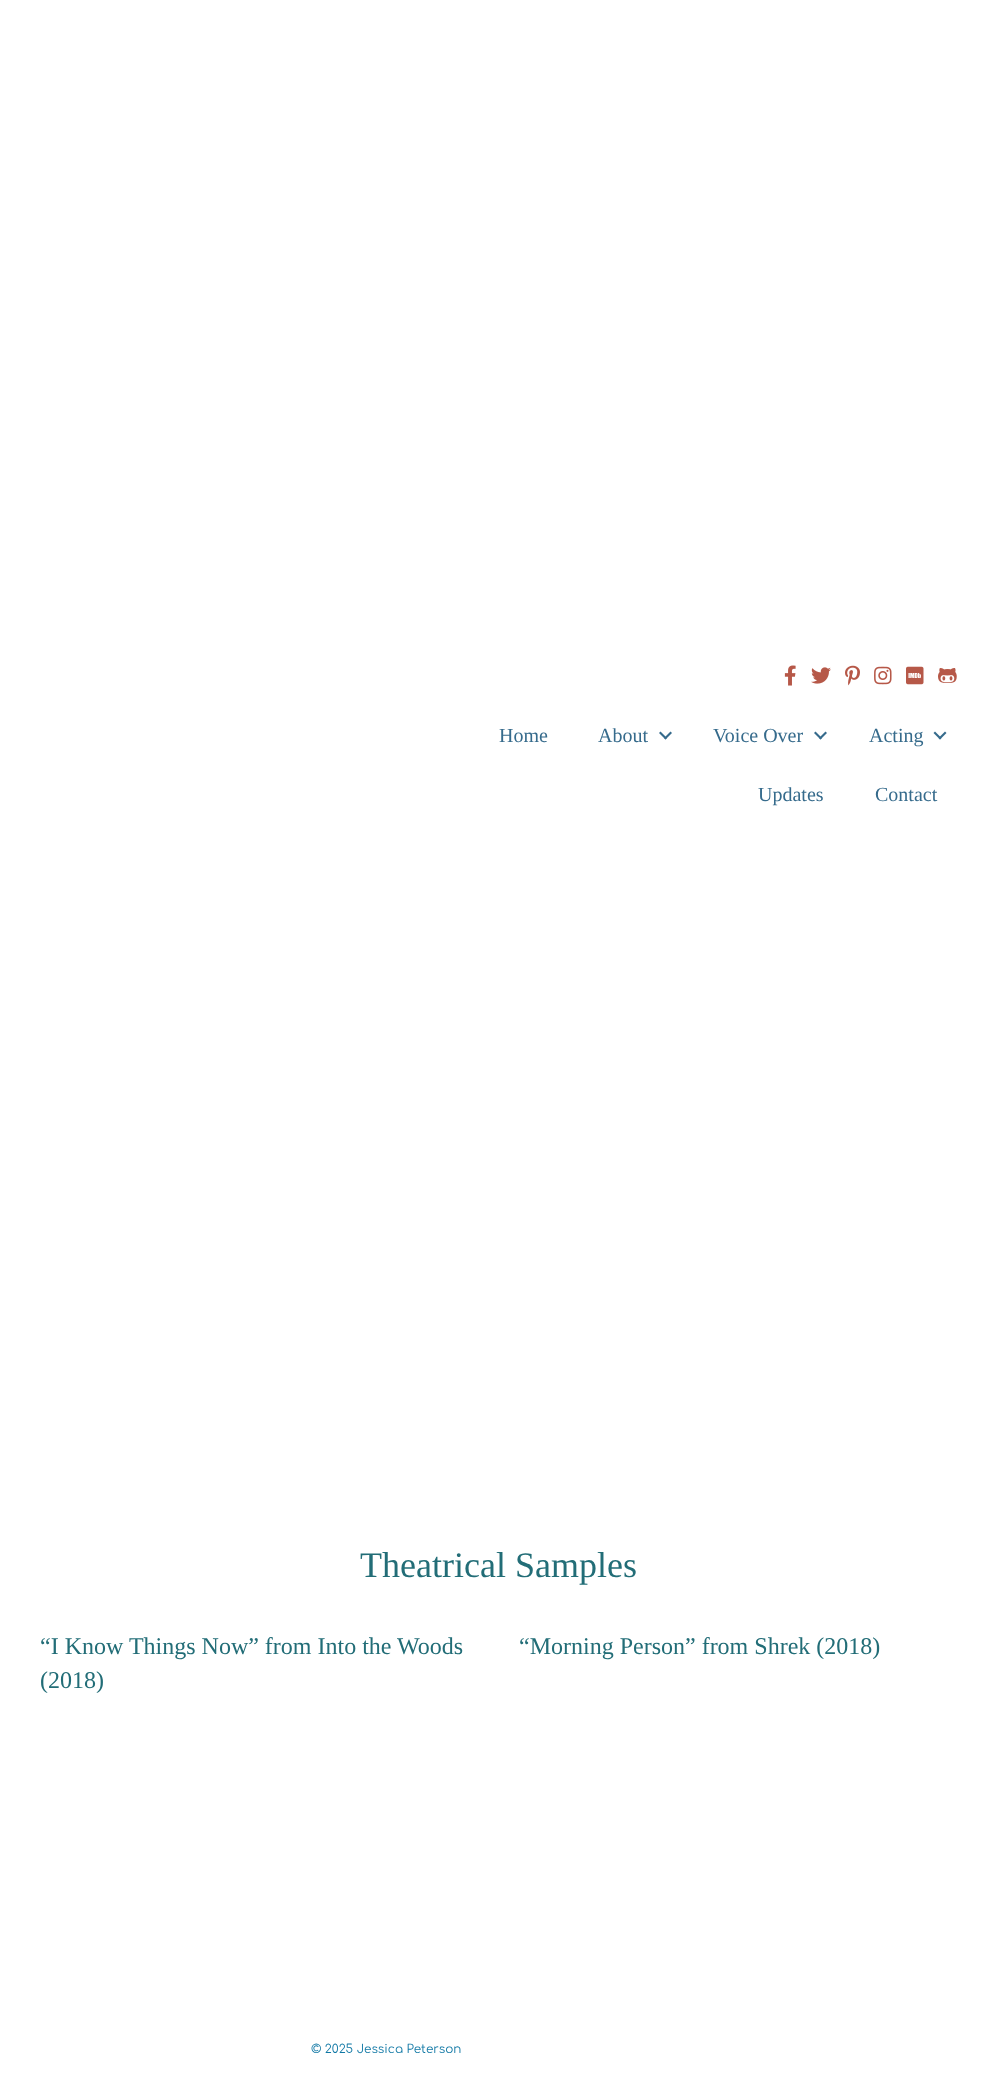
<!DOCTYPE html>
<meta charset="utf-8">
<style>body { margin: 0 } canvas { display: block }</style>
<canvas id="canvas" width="997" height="2083"></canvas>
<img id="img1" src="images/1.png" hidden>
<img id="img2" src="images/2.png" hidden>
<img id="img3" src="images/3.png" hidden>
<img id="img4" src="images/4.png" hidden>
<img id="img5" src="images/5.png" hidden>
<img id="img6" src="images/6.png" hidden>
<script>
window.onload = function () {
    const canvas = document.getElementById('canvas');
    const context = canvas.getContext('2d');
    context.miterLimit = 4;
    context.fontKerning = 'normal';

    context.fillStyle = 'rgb(255, 255, 255)';
    context.fillRect(0, 0, 997, 2083);
    context.drawImage(document.getElementById('img1'), 784, 665, 12, 21);
    context.drawImage(document.getElementById('img2'), 811, 667, 20, 17);
    context.drawImage(document.getElementById('img3'), 845, 665, 15, 21);
    context.drawImage(document.getElementById('img4'), 874, 666, 18, 19);
    context.drawImage(document.getElementById('img5'), 906, 666, 18, 19);
    context.drawImage(document.getElementById('img6'), 938, 668, 19, 15);
    context.fillStyle = 'rgb(54, 107, 140)';
    context.beginPath();
    context.moveTo(670.5, 731.5);
    context.lineTo(672, 733);
    context.lineTo(665.5, 739.5);
    context.lineTo(664, 738);
    context.closePath();
    context.fill();
    context.beginPath();
    context.moveTo(660.5, 731.5);
    context.lineTo(667, 738);
    context.lineTo(665.5, 739.5);
    context.lineTo(659, 733);
    context.closePath();
    context.fill();
    context.beginPath();
    context.moveTo(825.5, 731.5);
    context.lineTo(827, 733);
    context.lineTo(820.5, 739.5);
    context.lineTo(819, 738);
    context.closePath();
    context.fill();
    context.beginPath();
    context.moveTo(815.5, 731.5);
    context.lineTo(822, 738);
    context.lineTo(820.5, 739.5);
    context.lineTo(814, 733);
    context.closePath();
    context.fill();
    context.beginPath();
    context.moveTo(945, 731.5);
    context.lineTo(946.5, 733);
    context.lineTo(940, 739.5);
    context.lineTo(938.5, 738);
    context.closePath();
    context.fill();
    context.beginPath();
    context.moveTo(935, 731.5);
    context.lineTo(941.5, 738);
    context.lineTo(940, 739.5);
    context.lineTo(933.5, 733);
    context.closePath();
    context.fill();
    context.font = '20px Liberation Serif';
    context.fillText('Home', 499, 742);
    context.fillText('About', 598, 742);
    context.fillText('Voice Over', 713, 742);
    context.fillText('Acting', 869, 742);
    context.fillText('Updates', 758, 801);
    context.fillText('Contact', 875, 801);
    context.font = '36px Liberation Serif';
    context.fillStyle = 'rgb(34, 109, 119)';
    context.fillText('Theatrical Samples', 360, 1577);
    context.font = '24px Liberation Serif';
    context.fillText('“I Know Things Now” from Into the Woods', 40, 1654);
    context.fillText('(2018)', 40, 1688);
    context.fillText('“Morning Person” from Shrek (2018)', 519, 1654);
    context.font = '12px Comfortaa';
    context.fillStyle = 'rgb(16, 120, 165)';
    context.fillText('© 2025 Jessica Peterson', 311, 2053);
};
</script>
